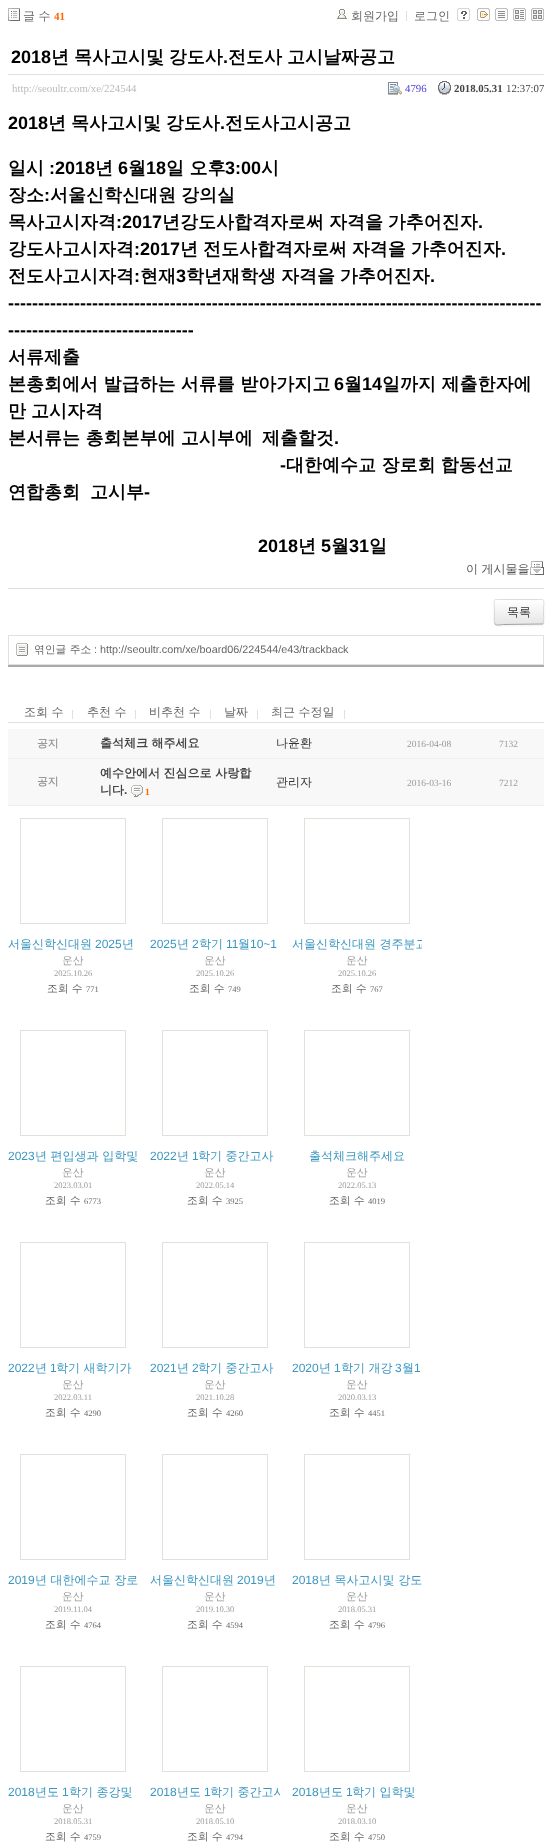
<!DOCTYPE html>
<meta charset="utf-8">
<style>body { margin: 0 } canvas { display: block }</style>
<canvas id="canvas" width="552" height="1842"></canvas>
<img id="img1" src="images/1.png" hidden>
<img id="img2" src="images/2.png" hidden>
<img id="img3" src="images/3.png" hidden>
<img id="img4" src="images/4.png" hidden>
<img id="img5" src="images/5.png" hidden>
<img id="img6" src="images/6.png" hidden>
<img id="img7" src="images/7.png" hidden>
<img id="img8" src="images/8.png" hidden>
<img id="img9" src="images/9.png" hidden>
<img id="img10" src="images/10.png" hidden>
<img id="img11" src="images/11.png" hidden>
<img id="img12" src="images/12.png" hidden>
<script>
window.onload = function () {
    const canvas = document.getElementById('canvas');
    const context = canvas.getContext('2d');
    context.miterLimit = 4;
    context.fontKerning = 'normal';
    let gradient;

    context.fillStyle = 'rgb(255, 255, 255)';
    context.fillRect(0, 0, 552, 1842);
    context.drawImage(document.getElementById('img1'), 8, 8, 12, 13);
    context.drawImage(document.getElementById('img2'), 337, 9, 10, 10);
    context.fillStyle = 'rgb(224, 224, 224)';
    context.fillRect(406, 11, 1, 10);
    context.drawImage(document.getElementById('img3'), 457, 8, 13, 13);
    context.drawImage(document.getElementById('img4'), 477, 8, 13, 13);
    context.drawImage(document.getElementById('img5'), 495, 8, 13, 13);
    context.drawImage(document.getElementById('img6'), 513, 8, 13, 13);
    context.drawImage(document.getElementById('img7'), 531, 8, 13, 13);
    context.fillStyle = 'rgb(170, 170, 170)';
    context.fillRect(8, 665, 536, 2);
    context.fillStyle = 'rgb(224, 225, 219)';
    context.fillRect(8, 74, 536, 1);
    context.drawImage(document.getElementById('img8'), 388, 82, 14, 13);
    context.drawImage(document.getElementById('img9'), 438, 81, 13, 14);
    context.drawImage(document.getElementById('img10'), 530, 561, 14, 14);
    context.fillStyle = 'rgb(221, 221, 221)';
    context.fillRect(8, 588, 536, 1);
    context.fillStyle = 'rgba(0, 0, 0, 0.05)';
    context.filter = 'blur(1px)';
    context.beginPath();
    context.roundRect(494, 600, 50, 26, 2);
    context.fill();
    context.filter = 'none';
    context.fillStyle = 'rgb(245, 245, 245)';
    context.beginPath();
    context.roundRect(494, 599, 50, 26, 2);
    context.fill();
    context.save();
    context.beginPath();
    context.roundRect(494, 599, 50, 26, 2);
    context.clip();
    gradient = context.createLinearGradient(519, 600, 519, 624);
    gradient.addColorStop(0, 'rgb(255, 255, 255)');
    gradient.addColorStop(1, 'rgb(230, 230, 230)');
    context.fillStyle = gradient;
    context.fillRect(494, 600, 50, 24);
    context.restore();
    context.fillStyle = 'rgb(254, 254, 254)';
    context.beginPath();
    context.moveTo(496, 601);
    context.lineTo(542, 601);
    context.lineTo(543, 602);
    context.bezierCurveTo(543, 598, 540, 600, 534, 600);
    context.lineTo(504, 600);
    context.bezierCurveTo(497, 600, 495, 598, 495, 603);
    context.closePath();
    context.fill();
    context.beginPath();
    context.moveTo(543, 624);
    context.lineTo(503.5, 624.5);
    context.bezierCurveTo(500.5, 624.5, 497, 626, 495, 624);
    context.strokeStyle = 'rgb(162, 162, 162)';
    context.stroke();
    context.beginPath();
    context.moveTo(495, 624);
    context.bezierCurveTo(493.5, 622.5, 494.5, 614, 494.5, 612);
    context.bezierCurveTo(494.5, 598, 491.5, 599.5, 503.5, 599.5);
    context.lineTo(534.5, 599.5);
    context.bezierCurveTo(546.5, 599.5, 543.5, 598, 543.5, 612);
    context.bezierCurveTo(543.5, 614, 544.5, 622.5, 543, 624);
    context.strokeStyle = 'rgba(0, 0, 0, 0.1)';
    context.stroke();
    context.strokeStyle = 'rgb(224, 225, 219)';
    context.strokeRect(8.5, 635.5, 535, 29);
    context.drawImage(document.getElementById('img11'), 16, 643, 12, 13);
    context.fillStyle = 'rgb(224, 225, 219)';
    context.fillRect(8, 722, 536, 1);
    context.fillStyle = 'rgb(224, 224, 224)';
    context.fillRect(72, 710, 1, 9);
    context.fillRect(135, 710, 1, 9);
    context.fillRect(210, 710, 1, 9);
    context.fillRect(257, 710, 1, 9);
    context.fillRect(344, 710, 1, 9);
    context.fillStyle = 'rgb(248, 248, 248)';
    context.fillRect(8, 729, 536, 29);
    context.fillStyle = 'rgb(239, 240, 237)';
    context.fillRect(8, 758, 536, 1);
    context.fillStyle = 'rgb(248, 248, 248)';
    context.fillRect(8, 759, 536, 46);
    context.fillStyle = 'rgb(239, 240, 237)';
    context.fillRect(8, 805, 536, 1);
    context.drawImage(document.getElementById('img12'), 131, 785, 12, 12);
    context.strokeRect(20.5, 818.5, 105, 105);
    context.strokeRect(162.5, 818.5, 105, 105);
    context.strokeRect(304.5, 818.5, 105, 105);
    context.strokeRect(20.5, 1030.5, 105, 105);
    context.strokeRect(162.5, 1030.5, 105, 105);
    context.strokeRect(304.5, 1030.5, 105, 105);
    context.strokeRect(20.5, 1242.5, 105, 105);
    context.strokeRect(162.5, 1242.5, 105, 105);
    context.strokeRect(304.5, 1242.5, 105, 105);
    context.strokeRect(20.5, 1454.5, 105, 105);
    context.strokeRect(162.5, 1454.5, 105, 105);
    context.strokeRect(304.5, 1454.5, 105, 105);
    context.strokeRect(20.5, 1666.5, 105, 105);
    context.strokeRect(162.5, 1666.5, 105, 105);
    context.strokeRect(304.5, 1666.5, 105, 105);
    context.font = '500 12px WenQuanYi Zen Hei';
    context.fillStyle = 'rgb(102, 102, 102)';
    context.fillText('글 수', 23, 20);
    context.font = 'bold 11px Liberation Serif';
    context.fillStyle = 'rgb(255, 102, 0)';
    context.fillText('41', 54, 20);
    context.font = '500 12px WenQuanYi Zen Hei';
    context.fillStyle = 'rgb(102, 102, 102)';
    context.fillText('회원가입', 351, 20);
    context.fillText('로그인', 414, 20);
    context.font = 'bold 18px Liberation Sans';
    context.fillStyle = 'rgb(0, 0, 0)';
    context.fillText('2018', 11, 63);
    context.wordSpacing = '-0.5px';
    context.font = 'bold 18px WenQuanYi Zen Hei';
    context.fillText('년 목사고시및 강도사', 51, 63);
    context.wordSpacing = '0px';
    context.font = 'bold 18px Liberation Sans';
    context.fillText('.', 223, 63);
    context.wordSpacing = '-0.5px';
    context.font = 'bold 18px WenQuanYi Zen Hei';
    context.fillText('전도사 고시날짜공고', 228, 63);
    context.wordSpacing = '0px';
    context.font = '10.8px Liberation Serif';
    context.fillStyle = 'rgb(187, 187, 187)';
    context.fillText('http://seoultr.com/xe/224544', 12, 92);
    context.fillStyle = 'rgb(74, 63, 215)';
    context.fillText('4796', 405, 92);
    context.font = 'bold 10.8px Liberation Serif';
    context.fillStyle = 'rgb(68, 68, 68)';
    context.fillText('2018.05.31', 454, 92);
    context.font = '10.8px Liberation Serif';
    context.fillText('12:37:07', 506, 92);
    context.font = 'bold 18px Liberation Sans';
    context.fillStyle = 'rgb(0, 0, 0)';
    context.fillText('2018', 8, 129);
    context.wordSpacing = '-0.5px';
    context.font = 'bold 18px WenQuanYi Zen Hei';
    context.fillText('년 목사고시및 강도사', 48, 129);
    context.wordSpacing = '0px';
    context.font = 'bold 18px Liberation Sans';
    context.fillText('.', 220, 129);
    context.font = 'bold 18px WenQuanYi Zen Hei';
    context.fillText('전도사고시공고', 225, 129);
    context.fillText('일시', 8, 174);
    context.font = 'bold 18px Liberation Sans';
    context.fillText(':2018', 49, 174);
    context.font = 'bold 18px WenQuanYi Zen Hei';
    context.fillText('년', 95, 174);
    context.font = 'bold 18px Liberation Sans';
    context.fillText('6', 118, 174);
    context.font = 'bold 18px WenQuanYi Zen Hei';
    context.fillText('월', 128, 174);
    context.font = 'bold 18px Liberation Sans';
    context.fillText('18', 146, 174);
    context.font = 'bold 18px WenQuanYi Zen Hei';
    context.fillText('일 오후', 166, 174);
    context.font = 'bold 18px Liberation Sans';
    context.fillText('3:00', 225, 174);
    context.font = 'bold 18px WenQuanYi Zen Hei';
    context.fillText('시', 261, 174);
    context.fillText('장소', 8, 201);
    context.font = 'bold 18px Liberation Sans';
    context.fillText(':', 44, 201);
    context.wordSpacing = '-0.5px';
    context.font = 'bold 18px WenQuanYi Zen Hei';
    context.fillText('서울신학신대원 강의실', 50, 201);
    context.wordSpacing = '0px';
    context.fillText('목사고시자격', 8, 228);
    context.font = 'bold 18px Liberation Sans';
    context.fillText(':2017', 116, 228);
    context.wordSpacing = '-0.5px';
    context.font = 'bold 18px WenQuanYi Zen Hei';
    context.fillText('년강도사합격자로써 자격을 가추어진자', 162, 228);
    context.wordSpacing = '0px';
    context.font = 'bold 18px Liberation Sans';
    context.fillText('.', 478, 228);
    context.font = 'bold 18px WenQuanYi Zen Hei';
    context.fillText('강도사고시자격', 8, 255);
    context.font = 'bold 18px Liberation Sans';
    context.fillText(':2017', 134, 255);
    context.wordSpacing = '-0.5px';
    context.font = 'bold 18px WenQuanYi Zen Hei';
    context.fillText('년 전도사합격자로써 자격을 가추어진자', 180, 255);
    context.wordSpacing = '0px';
    context.font = 'bold 18px Liberation Sans';
    context.fillText('.', 501, 255);
    context.font = 'bold 18px WenQuanYi Zen Hei';
    context.fillText('전도사고시자격', 8, 282);
    context.font = 'bold 18px Liberation Sans';
    context.fillText(':', 134, 282);
    context.font = 'bold 18px WenQuanYi Zen Hei';
    context.fillText('현재', 140, 282);
    context.font = 'bold 18px Liberation Sans';
    context.fillText('3', 176, 282);
    context.wordSpacing = '-0.5px';
    context.font = 'bold 18px WenQuanYi Zen Hei';
    context.fillText('학년재학생 자격을 가추어진자', 186, 282);
    context.wordSpacing = '0px';
    context.font = 'bold 18px Liberation Sans';
    context.fillText('.', 430, 282);
    context.fillText('-----------------------------------------------------------------------------------------', 8, 309);
    context.fillText('-------------------------------', 8, 336);
    context.font = 'bold 18px WenQuanYi Zen Hei';
    context.fillText('서류제출', 8, 363);
    context.fillText('본총회에서 발급하는 서류를 받아가지고', 8, 390);
    context.font = 'bold 18px Liberation Sans';
    context.fillText('6', 334, 390);
    context.font = 'bold 18px WenQuanYi Zen Hei';
    context.fillText('월', 344, 390);
    context.font = 'bold 18px Liberation Sans';
    context.fillText('14', 362, 390);
    context.font = 'bold 18px WenQuanYi Zen Hei';
    context.fillText('일까지 제출한자에', 382, 390);
    context.wordSpacing = '-0.5px';
    context.fillText('만 고시자격', 8, 417);
    context.wordSpacing = '0px';
    context.fillText('본서류는 총회본부에 고시부에', 8, 444);
    context.fillText('제출할것', 262, 444);
    context.font = 'bold 18px Liberation Sans';
    context.fillText('.', 334, 444);
    context.fillText('-', 280, 471);
    context.font = 'bold 18px WenQuanYi Zen Hei';
    context.fillText('대한예수교 장로회 합동선교', 286, 471);
    context.fillText('연합총회', 8, 498);
    context.fillText('고시부', 90, 498);
    context.font = 'bold 18px Liberation Sans';
    context.fillText('-', 144, 498);
    context.fillText('2018', 258, 552);
    context.font = 'bold 18px WenQuanYi Zen Hei';
    context.fillText('년', 298, 552);
    context.font = 'bold 18px Liberation Sans';
    context.fillText('5', 321, 552);
    context.font = 'bold 18px WenQuanYi Zen Hei';
    context.fillText('월', 331, 552);
    context.font = 'bold 18px Liberation Sans';
    context.fillText('31', 349, 552);
    context.font = 'bold 18px WenQuanYi Zen Hei';
    context.fillText('일', 369, 552);
    context.font = '500 12px WenQuanYi Zen Hei';
    context.fillStyle = 'rgb(85, 85, 85)';
    context.fillText('이 게시물을', 466, 573);
    context.fillStyle = 'rgb(51, 51, 51)';
    context.fillText('목록', 507, 616);
    context.font = '500 10.8px WenQuanYi Zen Hei';
    context.fillStyle = 'rgb(102, 102, 102)';
    context.fillText('엮인글 주소', 34, 653);
    context.font = '10.8px Liberation Sans';
    context.fillText(': http://seoultr.com/xe/board06/224544/e43/trackback', 94, 653);
    context.font = '500 12px WenQuanYi Zen Hei';
    context.fillText('조회 수', 24, 716);
    context.fillText('추천 수', 87, 716);
    context.fillText('비추천 수', 149, 716);
    context.fillText('날짜', 224, 716);
    context.fillText('최근 수정일', 271, 716);
    context.font = 'bold 10.8px WenQuanYi Zen Hei';
    context.fillStyle = 'rgb(153, 153, 153)';
    context.fillText('공지', 37, 747);
    context.font = 'bold 12px WenQuanYi Zen Hei';
    context.fillStyle = 'rgb(68, 68, 68)';
    context.fillText('출석체크 해주세요', 100, 747);
    context.font = '500 12px WenQuanYi Zen Hei';
    context.fillStyle = 'rgb(51, 51, 51)';
    context.fillText('나윤환', 276, 747);
    context.font = '9.5px Liberation Serif';
    context.fillStyle = 'rgb(153, 153, 153)';
    context.fillText('2016-04-08', 407, 747);
    context.fillText('7132', 499, 747);
    context.font = 'bold 10.8px WenQuanYi Zen Hei';
    context.fillText('공지', 37, 785);
    context.font = 'bold 12px WenQuanYi Zen Hei';
    context.fillStyle = 'rgb(68, 68, 68)';
    context.fillText('예수안에서 진심으로 사랑합', 100, 777);
    context.fillText('니다', 100, 794);
    context.font = 'bold 12px Liberation Sans';
    context.fillText('.', 124, 794);
    context.font = 'bold 9.5px Liberation Serif';
    context.fillStyle = 'rgb(255, 102, 0)';
    context.fillText('1', 145, 795);
    context.font = '500 12px WenQuanYi Zen Hei';
    context.fillStyle = 'rgb(51, 51, 51)';
    context.fillText('관리자', 276, 786);
    context.font = '9.5px Liberation Serif';
    context.fillStyle = 'rgb(153, 153, 153)';
    context.fillText('2016-03-16', 407, 786);
    context.fillText('7212', 499, 786);
    context.font = '500 12px WenQuanYi Zen Hei';
    context.fillStyle = 'rgb(59, 150, 192)';
    context.fillText('서울신학신대원', 8, 948);
    context.font = '12px Liberation Sans';
    context.fillText('2025', 95, 948);
    context.font = '500 12px WenQuanYi Zen Hei';
    context.fillText('년', 122, 948);
    context.font = '500 10.8px WenQuanYi Zen Hei';
    context.fillStyle = 'rgb(153, 153, 153)';
    context.fillText('운산', 62, 964);
    context.font = '8.5px Liberation Serif';
    context.fillText('2025.10.26', 54, 976);
    context.font = '500 10.8px WenQuanYi Zen Hei';
    context.fillStyle = 'rgb(102, 102, 102)';
    context.fillText('조회 수', 47, 992);
    context.font = '8.5px Liberation Serif';
    context.fillText('771', 86, 992);
    context.font = '12px Liberation Sans';
    context.fillStyle = 'rgb(59, 150, 192)';
    context.fillText('2025', 150, 948);
    context.font = '500 12px WenQuanYi Zen Hei';
    context.fillText('년', 177, 948);
    context.font = '12px Liberation Sans';
    context.fillText('2', 192, 948);
    context.font = '500 12px WenQuanYi Zen Hei';
    context.fillText('학기', 199, 948);
    context.font = '12px Liberation Sans';
    context.fillText('11', 226, 948);
    context.font = '500 12px WenQuanYi Zen Hei';
    context.fillText('월', 238, 948);
    context.font = '12px Liberation Sans';
    context.fillText('10~1', 250, 948);
    context.font = '500 10.8px WenQuanYi Zen Hei';
    context.fillStyle = 'rgb(153, 153, 153)';
    context.fillText('운산', 204, 964);
    context.font = '8.5px Liberation Serif';
    context.fillText('2025.10.26', 196, 976);
    context.font = '500 10.8px WenQuanYi Zen Hei';
    context.fillStyle = 'rgb(102, 102, 102)';
    context.fillText('조회 수', 189, 992);
    context.font = '8.5px Liberation Serif';
    context.fillText('749', 228, 992);
    context.save();
    context.beginPath();
    context.rect(292, 936, 130, 44);
    context.clip();
    context.font = '500 12px WenQuanYi Zen Hei';
    context.fillStyle = 'rgb(59, 150, 192)';
    context.fillText('서울신학신대원 경주분교', 292, 948);
    context.restore();
    context.font = '500 10.8px WenQuanYi Zen Hei';
    context.fillStyle = 'rgb(153, 153, 153)';
    context.fillText('운산', 346, 964);
    context.font = '8.5px Liberation Serif';
    context.fillText('2025.10.26', 338, 976);
    context.font = '500 10.8px WenQuanYi Zen Hei';
    context.fillStyle = 'rgb(102, 102, 102)';
    context.fillText('조회 수', 331, 992);
    context.font = '8.5px Liberation Serif';
    context.fillText('767', 370, 992);
    context.font = '12px Liberation Sans';
    context.fillStyle = 'rgb(59, 150, 192)';
    context.fillText('2023', 8, 1160);
    context.font = '500 12px WenQuanYi Zen Hei';
    context.fillText('년 편입생과 입학및', 35, 1160);
    context.font = '500 10.8px WenQuanYi Zen Hei';
    context.fillStyle = 'rgb(153, 153, 153)';
    context.fillText('운산', 62, 1176);
    context.font = '8.5px Liberation Serif';
    context.fillText('2023.03.01', 54, 1188);
    context.font = '500 10.8px WenQuanYi Zen Hei';
    context.fillStyle = 'rgb(102, 102, 102)';
    context.fillText('조회 수', 45, 1204);
    context.font = '8.5px Liberation Serif';
    context.fillText('6773', 84, 1204);
    context.font = '12px Liberation Sans';
    context.fillStyle = 'rgb(59, 150, 192)';
    context.fillText('2022', 150, 1160);
    context.font = '500 12px WenQuanYi Zen Hei';
    context.fillText('년', 177, 1160);
    context.font = '12px Liberation Sans';
    context.fillText('1', 192, 1160);
    context.font = '500 12px WenQuanYi Zen Hei';
    context.fillText('학기 중간고사', 198, 1160);
    context.font = '500 10.8px WenQuanYi Zen Hei';
    context.fillStyle = 'rgb(153, 153, 153)';
    context.fillText('운산', 204, 1176);
    context.font = '8.5px Liberation Serif';
    context.fillText('2022.05.14', 196, 1188);
    context.font = '500 10.8px WenQuanYi Zen Hei';
    context.fillStyle = 'rgb(102, 102, 102)';
    context.fillText('조회 수', 187, 1204);
    context.font = '8.5px Liberation Serif';
    context.fillText('3925', 226, 1204);
    context.font = '500 12px WenQuanYi Zen Hei';
    context.fillStyle = 'rgb(59, 150, 192)';
    context.fillText('출석체크해주세요', 309, 1160);
    context.font = '500 10.8px WenQuanYi Zen Hei';
    context.fillStyle = 'rgb(153, 153, 153)';
    context.fillText('운산', 346, 1176);
    context.font = '8.5px Liberation Serif';
    context.fillText('2022.05.13', 338, 1188);
    context.font = '500 10.8px WenQuanYi Zen Hei';
    context.fillStyle = 'rgb(102, 102, 102)';
    context.fillText('조회 수', 329, 1204);
    context.font = '8.5px Liberation Serif';
    context.fillText('4019', 368, 1204);
    context.font = '12px Liberation Sans';
    context.fillStyle = 'rgb(59, 150, 192)';
    context.fillText('2022', 8, 1372);
    context.font = '500 12px WenQuanYi Zen Hei';
    context.fillText('년', 35, 1372);
    context.font = '12px Liberation Sans';
    context.fillText('1', 50, 1372);
    context.font = '500 12px WenQuanYi Zen Hei';
    context.fillText('학기 새학기가', 56, 1372);
    context.font = '500 10.8px WenQuanYi Zen Hei';
    context.fillStyle = 'rgb(153, 153, 153)';
    context.fillText('운산', 62, 1388);
    context.font = '8.5px Liberation Serif';
    context.fillText('2022.03.11', 54, 1400);
    context.font = '500 10.8px WenQuanYi Zen Hei';
    context.fillStyle = 'rgb(102, 102, 102)';
    context.fillText('조회 수', 45, 1416);
    context.font = '8.5px Liberation Serif';
    context.fillText('4290', 84, 1416);
    context.font = '12px Liberation Sans';
    context.fillStyle = 'rgb(59, 150, 192)';
    context.fillText('2021', 150, 1372);
    context.font = '500 12px WenQuanYi Zen Hei';
    context.fillText('년', 177, 1372);
    context.font = '12px Liberation Sans';
    context.fillText('2', 192, 1372);
    context.font = '500 12px WenQuanYi Zen Hei';
    context.fillText('학기 중간고사', 198, 1372);
    context.font = '500 10.8px WenQuanYi Zen Hei';
    context.fillStyle = 'rgb(153, 153, 153)';
    context.fillText('운산', 204, 1388);
    context.font = '8.5px Liberation Serif';
    context.fillText('2021.10.28', 196, 1400);
    context.font = '500 10.8px WenQuanYi Zen Hei';
    context.fillStyle = 'rgb(102, 102, 102)';
    context.fillText('조회 수', 187, 1416);
    context.font = '8.5px Liberation Serif';
    context.fillText('4260', 226, 1416);
    context.font = '12px Liberation Sans';
    context.fillStyle = 'rgb(59, 150, 192)';
    context.fillText('2020', 292, 1372);
    context.font = '500 12px WenQuanYi Zen Hei';
    context.fillText('년', 319, 1372);
    context.font = '12px Liberation Sans';
    context.fillText('1', 334, 1372);
    context.font = '500 12px WenQuanYi Zen Hei';
    context.fillText('학기 개강', 341, 1372);
    context.font = '12px Liberation Sans';
    context.fillText('3', 395, 1372);
    context.font = '500 12px WenQuanYi Zen Hei';
    context.fillText('월', 402, 1372);
    context.font = '12px Liberation Sans';
    context.fillText('1', 414, 1372);
    context.font = '500 10.8px WenQuanYi Zen Hei';
    context.fillStyle = 'rgb(153, 153, 153)';
    context.fillText('운산', 346, 1388);
    context.font = '8.5px Liberation Serif';
    context.fillText('2020.03.13', 338, 1400);
    context.font = '500 10.8px WenQuanYi Zen Hei';
    context.fillStyle = 'rgb(102, 102, 102)';
    context.fillText('조회 수', 329, 1416);
    context.font = '8.5px Liberation Serif';
    context.fillText('4451', 368, 1416);
    context.font = '12px Liberation Sans';
    context.fillStyle = 'rgb(59, 150, 192)';
    context.fillText('2019', 8, 1584);
    context.font = '500 12px WenQuanYi Zen Hei';
    context.fillText('년 대한에수교 장로', 35, 1584);
    context.font = '500 10.8px WenQuanYi Zen Hei';
    context.fillStyle = 'rgb(153, 153, 153)';
    context.fillText('운산', 62, 1600);
    context.font = '8.5px Liberation Serif';
    context.fillText('2019.11.04', 54, 1612);
    context.font = '500 10.8px WenQuanYi Zen Hei';
    context.fillStyle = 'rgb(102, 102, 102)';
    context.fillText('조회 수', 45, 1628);
    context.font = '8.5px Liberation Serif';
    context.fillText('4764', 84, 1628);
    context.font = '500 12px WenQuanYi Zen Hei';
    context.fillStyle = 'rgb(59, 150, 192)';
    context.fillText('서울신학신대원', 150, 1584);
    context.font = '12px Liberation Sans';
    context.fillText('2019', 237, 1584);
    context.font = '500 12px WenQuanYi Zen Hei';
    context.fillText('년', 264, 1584);
    context.font = '500 10.8px WenQuanYi Zen Hei';
    context.fillStyle = 'rgb(153, 153, 153)';
    context.fillText('운산', 204, 1600);
    context.font = '8.5px Liberation Serif';
    context.fillText('2019.10.30', 196, 1612);
    context.font = '500 10.8px WenQuanYi Zen Hei';
    context.fillStyle = 'rgb(102, 102, 102)';
    context.fillText('조회 수', 187, 1628);
    context.font = '8.5px Liberation Serif';
    context.fillText('4594', 226, 1628);
    context.font = '12px Liberation Sans';
    context.fillStyle = 'rgb(59, 150, 192)';
    context.fillText('2018', 292, 1584);
    context.font = '500 12px WenQuanYi Zen Hei';
    context.fillText('년 목사고시및 강도', 319, 1584);
    context.font = '500 10.8px WenQuanYi Zen Hei';
    context.fillStyle = 'rgb(153, 153, 153)';
    context.fillText('운산', 346, 1600);
    context.font = '8.5px Liberation Serif';
    context.fillText('2018.05.31', 338, 1612);
    context.font = '500 10.8px WenQuanYi Zen Hei';
    context.fillStyle = 'rgb(102, 102, 102)';
    context.fillText('조회 수', 329, 1628);
    context.font = '8.5px Liberation Serif';
    context.fillText('4796', 368, 1628);
    context.font = '12px Liberation Sans';
    context.fillStyle = 'rgb(59, 150, 192)';
    context.fillText('2018', 8, 1796);
    context.font = '500 12px WenQuanYi Zen Hei';
    context.fillText('년도', 35, 1796);
    context.font = '12px Liberation Sans';
    context.fillText('1', 62, 1796);
    context.font = '500 12px WenQuanYi Zen Hei';
    context.fillText('학기 종강및', 69, 1796);
    context.font = '500 10.8px WenQuanYi Zen Hei';
    context.fillStyle = 'rgb(153, 153, 153)';
    context.fillText('운산', 62, 1812);
    context.font = '8.5px Liberation Serif';
    context.fillText('2018.05.31', 54, 1824);
    context.font = '500 10.8px WenQuanYi Zen Hei';
    context.fillStyle = 'rgb(102, 102, 102)';
    context.fillText('조회 수', 45, 1840);
    context.font = '8.5px Liberation Serif';
    context.fillText('4759', 84, 1840);
    context.font = '12px Liberation Sans';
    context.fillStyle = 'rgb(59, 150, 192)';
    context.fillText('2018', 150, 1796);
    context.font = '500 12px WenQuanYi Zen Hei';
    context.fillText('년도', 177, 1796);
    context.font = '12px Liberation Sans';
    context.fillText('1', 204, 1796);
    context.save();
    context.beginPath();
    context.rect(150, 1784, 130, 44);
    context.clip();
    context.font = '500 12px WenQuanYi Zen Hei';
    context.fillText('학기 중간고사', 210, 1796);
    context.restore();
    context.font = '500 10.8px WenQuanYi Zen Hei';
    context.fillStyle = 'rgb(153, 153, 153)';
    context.fillText('운산', 204, 1812);
    context.font = '8.5px Liberation Serif';
    context.fillText('2018.05.10', 196, 1824);
    context.font = '500 10.8px WenQuanYi Zen Hei';
    context.fillStyle = 'rgb(102, 102, 102)';
    context.fillText('조회 수', 187, 1840);
    context.font = '8.5px Liberation Serif';
    context.fillText('4794', 226, 1840);
    context.font = '12px Liberation Sans';
    context.fillStyle = 'rgb(59, 150, 192)';
    context.fillText('2018', 292, 1796);
    context.font = '500 12px WenQuanYi Zen Hei';
    context.fillText('년도', 319, 1796);
    context.font = '12px Liberation Sans';
    context.fillText('1', 346, 1796);
    context.font = '500 12px WenQuanYi Zen Hei';
    context.fillText('학기 입학및', 352, 1796);
    context.font = '500 10.8px WenQuanYi Zen Hei';
    context.fillStyle = 'rgb(153, 153, 153)';
    context.fillText('운산', 346, 1812);
    context.font = '8.5px Liberation Serif';
    context.fillText('2018.03.10', 338, 1824);
    context.font = '500 10.8px WenQuanYi Zen Hei';
    context.fillStyle = 'rgb(102, 102, 102)';
    context.fillText('조회 수', 329, 1840);
    context.font = '8.5px Liberation Serif';
    context.fillText('4750', 368, 1840);
};
</script>
